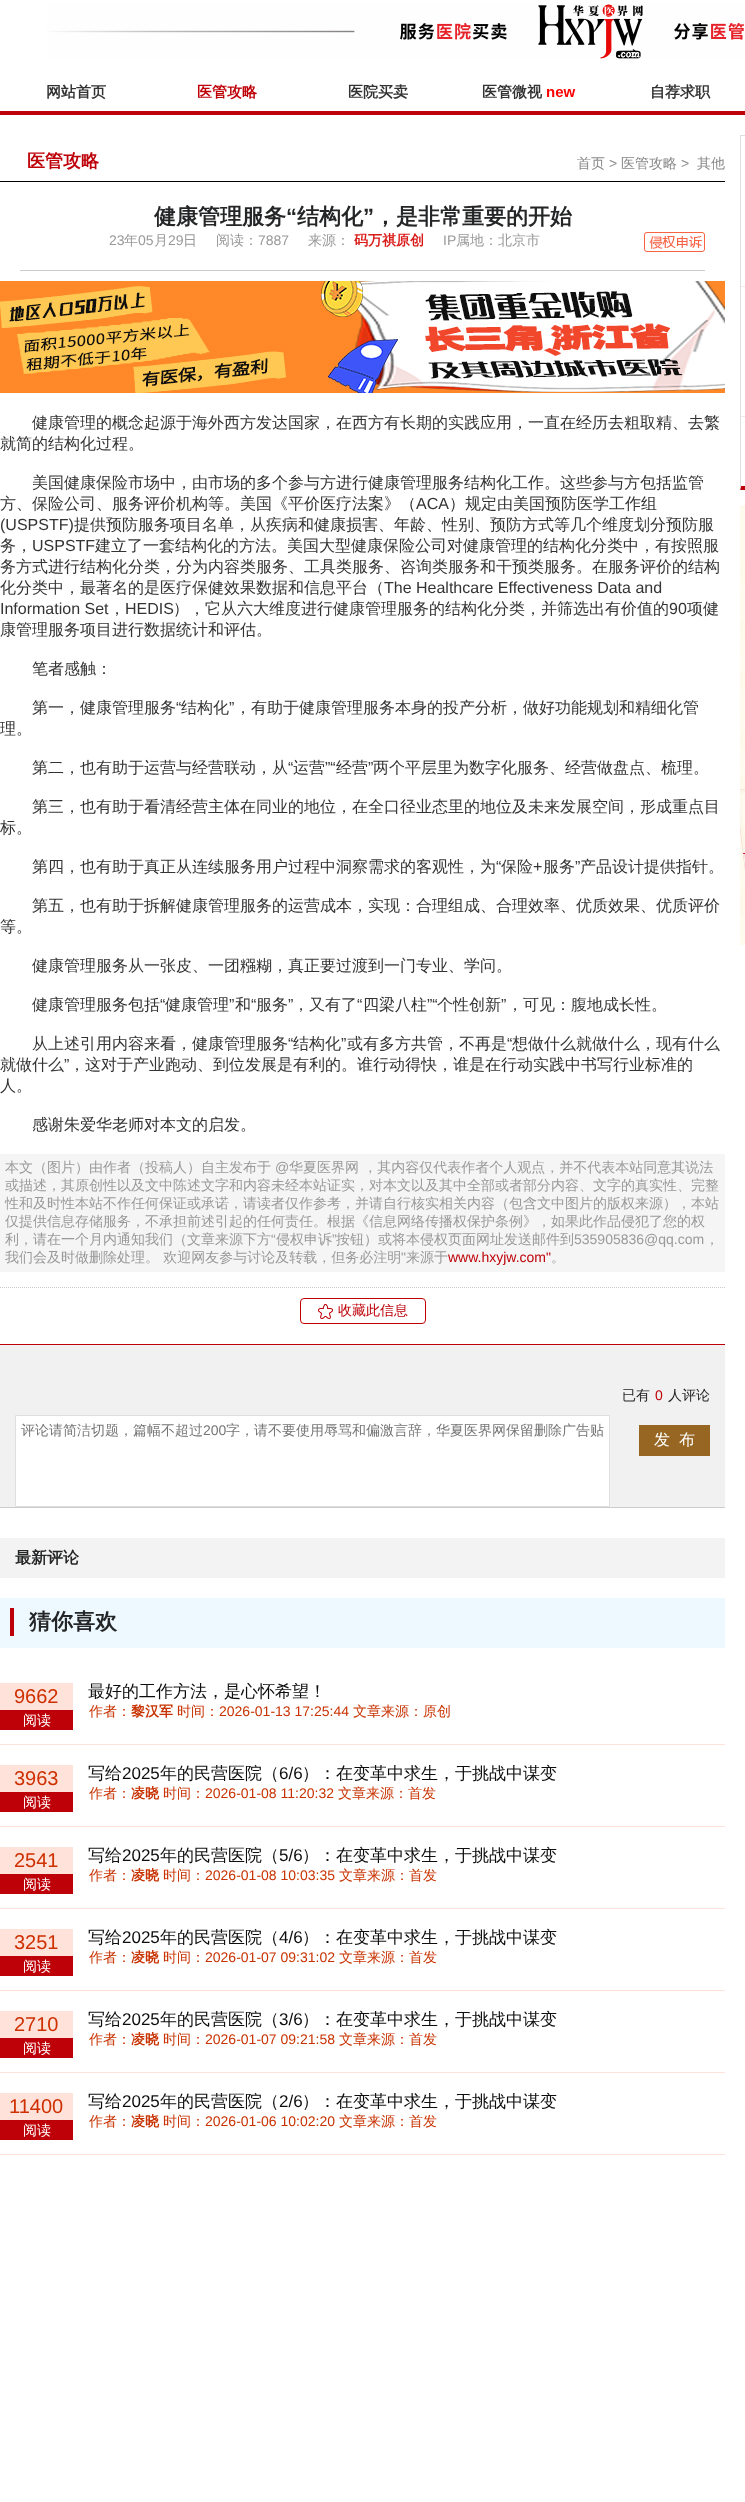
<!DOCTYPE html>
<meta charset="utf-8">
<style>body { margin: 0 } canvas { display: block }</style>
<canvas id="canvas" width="745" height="2502"></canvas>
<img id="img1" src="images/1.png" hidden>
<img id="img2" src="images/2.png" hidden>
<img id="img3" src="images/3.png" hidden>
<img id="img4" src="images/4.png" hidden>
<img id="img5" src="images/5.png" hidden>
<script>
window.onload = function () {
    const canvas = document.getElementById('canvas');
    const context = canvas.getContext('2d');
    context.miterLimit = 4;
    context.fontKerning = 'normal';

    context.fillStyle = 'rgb(255, 255, 255)';
    context.fillRect(0, 0, 745, 2502);
    context.fillStyle = 'rgb(190, 0, 8)';
    context.fillRect(0, 111, 745, 4);
    context.drawImage(document.getElementById('img1'), 47, 4, 698, 55);
    context.fillStyle = 'rgb(0, 0, 0)';
    context.fillRect(0, 181, 725, 1);
    context.fillStyle = 'rgb(204, 204, 204)';
    context.fillRect(20, 270, 685, 1);
    context.drawImage(document.getElementById('img2'), 644, 232, 61, 20);
    context.drawImage(document.getElementById('img3'), 0, 281, 725, 112);
    context.beginPath();
    context.moveTo(0, 1287.5);
    context.lineTo(725, 1287.5);
    context.strokeStyle = 'rgb(204, 204, 204)';
    context.setLineDash([1, 1]);
    context.stroke();
    context.fillStyle = 'rgb(245, 245, 245)';
    context.fillRect(0, 1154, 725, 118);
    context.beginPath();
    context.roundRect(300.5, 1298.5, 125, 25, 3.5);
    context.strokeStyle = 'rgb(190, 0, 0)';
    context.setLineDash([]);
    context.stroke();
    context.drawImage(document.getElementById('img4'), 318, 1304, 15, 15);
    context.fillStyle = 'rgb(241, 241, 241)';
    context.fillRect(0, 1345, 725, 162);
    context.fillStyle = 'rgb(190, 0, 8)';
    context.fillRect(0, 1344, 725, 1);
    context.fillStyle = 'rgb(204, 204, 204)';
    context.fillRect(0, 1507, 725, 1);
    context.fillStyle = 'rgb(255, 255, 255)';
    context.beginPath();
    context.rect(15.5, 1415.5, 594, 91);
    context.fill();
    context.strokeStyle = 'rgb(223, 223, 223)';
    context.stroke();
    context.fillStyle = 'rgb(151, 102, 34)';
    context.fillRect(639, 1425, 71, 31);
    context.fillStyle = 'rgb(243, 243, 243)';
    context.fillRect(0, 1538, 725, 40);
    context.fillStyle = 'rgb(238, 249, 255)';
    context.fillRect(0, 1598, 725, 50);
    context.fillStyle = 'rgb(190, 0, 8)';
    context.fillRect(10, 1608, 4, 28);
    context.fillStyle = 'rgb(255, 226, 218)';
    context.fillRect(0, 1744, 725, 1);
    context.fillStyle = 'rgb(190, 0, 8)';
    context.fillRect(0, 1710, 73, 20);
    context.fillStyle = 'rgb(255, 226, 218)';
    context.fillRect(0, 1683, 73, 27);
    context.fillRect(0, 1826, 725, 1);
    context.fillStyle = 'rgb(190, 0, 8)';
    context.fillRect(0, 1792, 73, 20);
    context.fillStyle = 'rgb(255, 226, 218)';
    context.fillRect(0, 1765, 73, 27);
    context.fillRect(0, 1908, 725, 1);
    context.fillStyle = 'rgb(190, 0, 8)';
    context.fillRect(0, 1874, 73, 20);
    context.fillStyle = 'rgb(255, 226, 218)';
    context.fillRect(0, 1847, 73, 27);
    context.fillRect(0, 1990, 725, 1);
    context.fillStyle = 'rgb(190, 0, 8)';
    context.fillRect(0, 1956, 73, 20);
    context.fillStyle = 'rgb(255, 226, 218)';
    context.fillRect(0, 1929, 73, 27);
    context.fillRect(0, 2072, 725, 1);
    context.fillStyle = 'rgb(190, 0, 8)';
    context.fillRect(0, 2038, 73, 20);
    context.fillStyle = 'rgb(255, 226, 218)';
    context.fillRect(0, 2011, 73, 27);
    context.fillRect(0, 2154, 725, 1);
    context.fillStyle = 'rgb(190, 0, 8)';
    context.fillRect(0, 2120, 73, 20);
    context.fillStyle = 'rgb(255, 226, 218)';
    context.fillRect(0, 2093, 73, 27);
    context.fillStyle = 'rgb(223, 223, 223)';
    context.fillRect(740, 135, 5, 1);
    context.fillStyle = 'rgb(190, 0, 8)';
    context.beginPath();
    context.moveTo(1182, 490);
    context.lineTo(740, 490);
    context.lineTo(741, 486);
    context.lineTo(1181, 486);
    context.closePath();
    context.fill();
    context.fillStyle = 'rgb(223, 223, 223)';
    context.beginPath();
    context.moveTo(740, 490);
    context.lineTo(740, 135);
    context.lineTo(741, 136);
    context.lineTo(741, 486);
    context.closePath();
    context.fill();
    context.fillStyle = 'rgb(246, 232, 231)';
    context.fillRect(741, 286, 4, 1);
    context.fillRect(741, 416, 4, 1);
    context.drawImage(document.getElementById('img5'), 740, 505, 5, 440);
    context.font = 'bold 15px WenQuanYi Zen Hei';
    context.fillStyle = 'rgb(51, 51, 51)';
    context.fillText('网站首页', 46, 97);
    context.fillStyle = 'rgb(190, 0, 8)';
    context.fillText('医管攻略', 197, 97);
    context.fillStyle = 'rgb(51, 51, 51)';
    context.fillText('医院买卖', 348, 97);
    context.fillText('医管微视', 482, 97);
    context.font = 'bold 15px Liberation Sans';
    context.fillStyle = 'rgb(255, 0, 0)';
    context.fillText('new', 546, 97);
    context.font = 'bold 15px WenQuanYi Zen Hei';
    context.fillStyle = 'rgb(51, 51, 51)';
    context.fillText('自荐求职', 650, 97);
    context.font = 'bold 18px WenQuanYi Zen Hei';
    context.fillStyle = 'rgb(190, 0, 8)';
    context.fillText('医管攻略', 27, 167);
    context.font = '500 14px WenQuanYi Zen Hei';
    context.fillStyle = 'rgb(136, 136, 136)';
    context.fillText('首页', 577, 168);
    context.font = '14px Liberation Sans';
    context.fillText('>', 609, 168);
    context.font = '500 14px WenQuanYi Zen Hei';
    context.fillText('医管攻略', 621, 168);
    context.font = '14px Liberation Sans';
    context.fillText('>', 681, 168);
    context.font = '500 14px WenQuanYi Zen Hei';
    context.fillText('其他', 697, 168);
    context.font = 'bold 22px WenQuanYi Zen Hei';
    context.fillStyle = 'rgb(36, 37, 38)';
    context.fillText('健康管理服务', 154, 224);
    context.font = 'bold 22px Liberation Sans';
    context.fillText('“', 286, 224);
    context.font = 'bold 22px WenQuanYi Zen Hei';
    context.fillText('结构化', 297, 224);
    context.font = 'bold 22px Liberation Sans';
    context.fillText('”', 363, 224);
    context.font = 'bold 22px WenQuanYi Zen Hei';
    context.fillText('，是非常重要的开始', 374, 224);
    context.font = '14px Liberation Sans';
    context.fillStyle = 'rgb(153, 153, 153)';
    context.fillText('23', 109, 245);
    context.font = '500 14px WenQuanYi Zen Hei';
    context.fillText('年', 124, 245);
    context.font = '14px Liberation Sans';
    context.fillText('05', 138, 245);
    context.font = '500 14px WenQuanYi Zen Hei';
    context.fillText('月', 154, 245);
    context.font = '14px Liberation Sans';
    context.fillText('29', 168, 245);
    context.font = '500 14px WenQuanYi Zen Hei';
    context.fillText('日', 183, 245);
    context.fillText('阅读：', 216, 245);
    context.font = '14px Liberation Sans';
    context.fillText('7887', 258, 245);
    context.font = '500 14px WenQuanYi Zen Hei';
    context.fillText('来源：', 308, 245);
    context.font = 'bold 14px WenQuanYi Zen Hei';
    context.fillStyle = 'rgb(217, 26, 23)';
    context.fillText('码万祺原创', 354, 245);
    context.font = '14px Liberation Sans';
    context.fillStyle = 'rgb(153, 153, 153)';
    context.fillText('IP', 443, 245);
    context.font = '500 14px WenQuanYi Zen Hei';
    context.fillText('属地：北京市', 456, 245);
    context.font = '500 16px WenQuanYi Zen Hei';
    context.fillStyle = 'rgb(51, 51, 51)';
    context.fillText('健康管理的概念起源于海外西方发达国家，在西方有长期的实践应用，一直在经历去粗取精、去繁', 32, 428);
    context.fillText('就简的结构化过程。', 0, 449);
    context.fillText('美国健康保险市场中，由市场的多个参与方进行健康管理服务结构化工作。这些参与方包括监管', 32, 488);
    context.fillText('方、保险公司、服务评价机构等。美国《平价医疗法案》（', 0, 509);
    context.font = '16px Liberation Sans';
    context.fillText('ACA', 416, 509);
    context.font = '500 16px WenQuanYi Zen Hei';
    context.fillText('）规定由美国预防医学工作组', 449, 509);
    context.font = '16px Liberation Sans';
    context.fillText('(USPSTF)', 0, 530);
    context.font = '500 16px WenQuanYi Zen Hei';
    context.fillText('提供预防服务项目名单，从疾病和健康损害、年龄、性别、预防方式等几个维度划分预防服', 74, 530);
    context.fillText('务，', 0, 551);
    context.font = '16px Liberation Sans';
    context.fillText('USPSTF', 32, 551);
    context.font = '500 16px WenQuanYi Zen Hei';
    context.fillText('建立了一套结构化的方法。美国大型健康保险公司对健康管理的结构化分类中，有按照服', 95, 551);
    context.fillText('务方式进行结构化分类，分为内容类服务、工具类服务、咨询类服务和干预类服务。在服务评价的结构', 0, 572);
    context.fillText('化分类中，最著名的是医疗保健效果数据和信息平台（', 0, 593);
    context.font = '16px Liberation Sans';
    context.fillText('The Healthcare Effectiveness Data and', 384, 593);
    context.fillText('Information Set', 0, 614);
    context.font = '500 16px WenQuanYi Zen Hei';
    context.fillText('，', 109, 614);
    context.font = '16px Liberation Sans';
    context.fillText('HEDIS', 125, 614);
    context.font = '500 16px WenQuanYi Zen Hei';
    context.fillText('），它从六大维度进行健康管理服务的结构化分类，并筛选出有价值的', 173, 614);
    context.font = '16px Liberation Sans';
    context.fillText('90', 669, 614);
    context.font = '500 16px WenQuanYi Zen Hei';
    context.fillText('项健', 687, 614);
    context.fillText('康管理服务项目进行数据统计和评估。', 0, 635);
    context.fillText('笔者感触：', 32, 674);
    context.fillText('第一，健康管理服务', 32, 713);
    context.font = '16px Liberation Sans';
    context.fillText('“', 176, 713);
    context.font = '500 16px WenQuanYi Zen Hei';
    context.fillText('结构化', 181, 713);
    context.font = '16px Liberation Sans';
    context.fillText('”', 229, 713);
    context.font = '500 16px WenQuanYi Zen Hei';
    context.fillText('，有助于健康管理服务本身的投产分析，做好功能规划和精细化管', 235, 713);
    context.fillText('理。', 0, 734);
    context.fillText('第二，也有助于运营与经营联动，从', 32, 773);
    context.font = '16px Liberation Sans';
    context.fillText('“', 288, 773);
    context.font = '500 16px WenQuanYi Zen Hei';
    context.fillText('运营', 293, 773);
    context.font = '16px Liberation Sans';
    context.fillText('”“', 325, 773);
    context.font = '500 16px WenQuanYi Zen Hei';
    context.fillText('经营', 336, 773);
    context.font = '16px Liberation Sans';
    context.fillText('”', 368, 773);
    context.font = '500 16px WenQuanYi Zen Hei';
    context.fillText('两个平层里为数字化服务、经营做盘点、梳理。', 373, 773);
    context.fillText('第三，也有助于看清经营主体在同业的地位，在全口径业态里的地位及未来发展空间，形成重点目', 32, 812);
    context.fillText('标。', 0, 833);
    context.fillText('第四，也有助于真正从连续服务用户过程中洞察需求的客观性，为', 32, 872);
    context.font = '16px Liberation Sans';
    context.fillText('“', 496, 872);
    context.font = '500 16px WenQuanYi Zen Hei';
    context.fillText('保险', 501, 872);
    context.font = '16px Liberation Sans';
    context.fillText('+', 533, 872);
    context.font = '500 16px WenQuanYi Zen Hei';
    context.fillText('服务', 543, 872);
    context.font = '16px Liberation Sans';
    context.fillText('”', 575, 872);
    context.font = '500 16px WenQuanYi Zen Hei';
    context.fillText('产品设计提供指针。', 580, 872);
    context.fillText('第五，也有助于拆解健康管理服务的运营成本，实现：合理组成、合理效率、优质效果、优质评价', 32, 911);
    context.fillText('等。', 0, 932);
    context.fillText('健康管理服务从一张皮、一团糨糊，真正要过渡到一门专业、学问。', 32, 971);
    context.fillText('健康管理服务包括', 32, 1010);
    context.font = '16px Liberation Sans';
    context.fillText('“', 160, 1010);
    context.font = '500 16px WenQuanYi Zen Hei';
    context.fillText('健康管理', 165, 1010);
    context.font = '16px Liberation Sans';
    context.fillText('”', 229, 1010);
    context.font = '500 16px WenQuanYi Zen Hei';
    context.fillText('和', 235, 1010);
    context.font = '16px Liberation Sans';
    context.fillText('“', 251, 1010);
    context.font = '500 16px WenQuanYi Zen Hei';
    context.fillText('服务', 256, 1010);
    context.font = '16px Liberation Sans';
    context.fillText('”', 288, 1010);
    context.font = '500 16px WenQuanYi Zen Hei';
    context.fillText('，又有了', 293, 1010);
    context.font = '16px Liberation Sans';
    context.fillText('“', 357, 1010);
    context.font = '500 16px WenQuanYi Zen Hei';
    context.fillText('四梁八柱', 363, 1010);
    context.font = '16px Liberation Sans';
    context.fillText('”“', 427, 1010);
    context.font = '500 16px WenQuanYi Zen Hei';
    context.fillText('个性创新', 437, 1010);
    context.font = '16px Liberation Sans';
    context.fillText('”', 501, 1010);
    context.font = '500 16px WenQuanYi Zen Hei';
    context.fillText('，可见：腹地成长性。', 507, 1010);
    context.fillText('从上述引用内容来看，健康管理服务', 32, 1049);
    context.font = '16px Liberation Sans';
    context.fillText('“', 288, 1049);
    context.font = '500 16px WenQuanYi Zen Hei';
    context.fillText('结构化', 293, 1049);
    context.font = '16px Liberation Sans';
    context.fillText('”', 341, 1049);
    context.font = '500 16px WenQuanYi Zen Hei';
    context.fillText('或有多方共管，不再是', 347, 1049);
    context.font = '16px Liberation Sans';
    context.fillText('“', 507, 1049);
    context.font = '500 16px WenQuanYi Zen Hei';
    context.fillText('想做什么就做什么，现有什么', 512, 1049);
    context.fillText('就做什么', 0, 1070);
    context.font = '16px Liberation Sans';
    context.fillText('”', 64, 1070);
    context.font = '500 16px WenQuanYi Zen Hei';
    context.fillText('，这对于产业跑动、到位发展是有利的。谁行动得快，谁是在行动实践中书写行业标准的', 69, 1070);
    context.fillText('人。', 0, 1091);
    context.fillText('感谢朱爱华老师对本文的启发。', 32, 1130);
    context.font = '500 14px WenQuanYi Zen Hei';
    context.fillStyle = 'rgb(153, 153, 153)';
    context.fillText('本文（图片）由作者（投稿人）自主发布于', 5, 1172);
    context.font = '14px Liberation Sans';
    context.fillText('@', 275, 1172);
    context.font = '500 14px WenQuanYi Zen Hei';
    context.fillText('华夏医界网 ，其内容仅代表作者个人观点，并不代表本站同意其说法', 289, 1172);
    context.fillText('或描述，其原创性以及文中陈述文字和内容未经本站证实，对本文以及其中全部或者部分内容、文字的真实性、完整', 5, 1190);
    context.fillText('性和及时性本站不作任何保证或承诺，请读者仅作参考，并请自行核实相关内容（包含文中图片的版权来源），本站', 5, 1208);
    context.fillText('仅提供信息存储服务，不承担前述引起的任何责任。根据《信息网络传播权保护条例》，如果此作品侵犯了您的权', 5, 1226);
    context.fillText('利，请在一个月内通知我们（文章来源下方', 5, 1244);
    context.font = '14px Liberation Sans';
    context.fillText('“', 271, 1244);
    context.font = '500 14px WenQuanYi Zen Hei';
    context.fillText('侵权申诉', 276, 1244);
    context.font = '14px Liberation Sans';
    context.fillText('”', 332, 1244);
    context.font = '500 14px WenQuanYi Zen Hei';
    context.fillText('按钮）或将本侵权页面网址发送邮件到', 336, 1244);
    context.font = '14px Liberation Sans';
    context.fillText('535905836@qq.com', 574, 1244);
    context.font = '500 14px WenQuanYi Zen Hei';
    context.fillText('，', 705, 1244);
    context.fillText('我们会及时做删除处理。 欢迎网友参与讨论及转载，但务必注明', 5, 1262);
    context.font = '14px Liberation Sans';
    context.fillText('"', 401, 1262);
    context.font = '500 14px WenQuanYi Zen Hei';
    context.fillText('来源于', 406, 1262);
    context.font = '14px Liberation Sans';
    context.fillStyle = 'rgb(190, 0, 8)';
    context.fillText('www.hxyjw.com"', 448, 1262);
    context.font = '500 14px WenQuanYi Zen Hei';
    context.fillStyle = 'rgb(153, 153, 153)';
    context.fillText('。', 551, 1262);
    context.fillStyle = 'rgb(190, 0, 8)';
    context.fillText('收藏此信息', 338, 1315);
    context.fillStyle = 'rgb(36, 37, 38)';
    context.fillText('已有', 622, 1400);
    context.font = '14px Liberation Sans';
    context.fillStyle = 'rgb(190, 0, 8)';
    context.fillText('0', 655, 1400);
    context.font = '500 14px WenQuanYi Zen Hei';
    context.fillStyle = 'rgb(36, 37, 38)';
    context.fillText('人评论', 668, 1400);
    context.fillStyle = 'rgb(117, 117, 117)';
    context.fillText('评论请简洁切题，篇幅不超过', 21, 1435);
    context.font = '14px Liberation Sans';
    context.fillText('200', 203, 1435);
    context.font = '500 14px WenQuanYi Zen Hei';
    context.fillText('字，请不要使用辱骂和偏激言辞，华夏医界网保留删除广告贴', 226, 1435);
    context.font = '500 16px WenQuanYi Zen Hei';
    context.fillStyle = 'rgb(255, 255, 255)';
    context.fillText('发', 654, 1445);
    context.fillText('布', 679, 1445);
    context.font = 'bold 16px WenQuanYi Zen Hei';
    context.fillStyle = 'rgb(36, 37, 38)';
    context.fillText('最新评论', 15, 1563);
    context.font = 'bold 22px WenQuanYi Zen Hei';
    context.fillText('猜你喜欢', 29, 1629);
    context.font = '20px Liberation Sans';
    context.fillStyle = 'rgb(206, 48, 1)';
    context.fillText('9662', 14, 1703);
    context.font = '500 14px WenQuanYi Zen Hei';
    context.fillStyle = 'rgb(255, 255, 255)';
    context.fillText('阅读', 23, 1725);
    context.save();
    context.beginPath();
    context.rect(88, 1683, 537, 20);
    context.clip();
    context.font = '500 17px WenQuanYi Zen Hei';
    context.fillStyle = 'rgb(13, 13, 13)';
    context.fillText('最好的工作方法，是心怀希望！', 88, 1697);
    context.restore();
    context.fillStyle = 'rgb(200, 50, 0)';
    context.fillText('作者：', 89, 1716);
    context.font = 'bold 14px WenQuanYi Zen Hei';
    context.fillText('黎汉军', 131, 1716);
    context.font = '500 14px WenQuanYi Zen Hei';
    context.fillText('时间：', 177, 1716);
    context.font = '14px Liberation Sans';
    context.fillText('2026-01-13 17:25:44', 219, 1716);
    context.font = '500 14px WenQuanYi Zen Hei';
    context.fillText('文章来源：原创', 353, 1716);
    context.font = '20px Liberation Sans';
    context.fillStyle = 'rgb(206, 48, 1)';
    context.fillText('3963', 14, 1785);
    context.font = '500 14px WenQuanYi Zen Hei';
    context.fillStyle = 'rgb(255, 255, 255)';
    context.fillText('阅读', 23, 1807);
    context.font = '500 17px WenQuanYi Zen Hei';
    context.fillStyle = 'rgb(13, 13, 13)';
    context.fillText('写给', 88, 1779);
    context.font = '17px Liberation Sans';
    context.fillText('2025', 122, 1779);
    context.font = '500 17px WenQuanYi Zen Hei';
    context.fillText('年的民营医院（', 160, 1779);
    context.font = '17px Liberation Sans';
    context.fillText('6/6', 279, 1779);
    context.font = '500 17px WenQuanYi Zen Hei';
    context.fillText('）：在变革中求生，于挑战中谋变', 302, 1779);
    context.font = '500 14px WenQuanYi Zen Hei';
    context.fillStyle = 'rgb(200, 50, 0)';
    context.fillText('作者：', 89, 1798);
    context.font = 'bold 14px WenQuanYi Zen Hei';
    context.fillText('凌晓', 131, 1798);
    context.font = '500 14px WenQuanYi Zen Hei';
    context.fillText('时间：', 163, 1798);
    context.font = '14px Liberation Sans';
    context.fillText('2026-01-08 11:20:32', 205, 1798);
    context.font = '500 14px WenQuanYi Zen Hei';
    context.fillText('文章来源：首发', 338, 1798);
    context.font = '20px Liberation Sans';
    context.fillStyle = 'rgb(206, 48, 1)';
    context.fillText('2541', 14, 1867);
    context.font = '500 14px WenQuanYi Zen Hei';
    context.fillStyle = 'rgb(255, 255, 255)';
    context.fillText('阅读', 23, 1889);
    context.font = '500 17px WenQuanYi Zen Hei';
    context.fillStyle = 'rgb(13, 13, 13)';
    context.fillText('写给', 88, 1861);
    context.font = '17px Liberation Sans';
    context.fillText('2025', 122, 1861);
    context.font = '500 17px WenQuanYi Zen Hei';
    context.fillText('年的民营医院（', 160, 1861);
    context.font = '17px Liberation Sans';
    context.fillText('5/6', 279, 1861);
    context.font = '500 17px WenQuanYi Zen Hei';
    context.fillText('）：在变革中求生，于挑战中谋变', 302, 1861);
    context.font = '500 14px WenQuanYi Zen Hei';
    context.fillStyle = 'rgb(200, 50, 0)';
    context.fillText('作者：', 89, 1880);
    context.font = 'bold 14px WenQuanYi Zen Hei';
    context.fillText('凌晓', 131, 1880);
    context.font = '500 14px WenQuanYi Zen Hei';
    context.fillText('时间：', 163, 1880);
    context.font = '14px Liberation Sans';
    context.fillText('2026-01-08 10:03:35', 205, 1880);
    context.font = '500 14px WenQuanYi Zen Hei';
    context.fillText('文章来源：首发', 339, 1880);
    context.font = '20px Liberation Sans';
    context.fillStyle = 'rgb(206, 48, 1)';
    context.fillText('3251', 14, 1949);
    context.font = '500 14px WenQuanYi Zen Hei';
    context.fillStyle = 'rgb(255, 255, 255)';
    context.fillText('阅读', 23, 1971);
    context.font = '500 17px WenQuanYi Zen Hei';
    context.fillStyle = 'rgb(13, 13, 13)';
    context.fillText('写给', 88, 1943);
    context.font = '17px Liberation Sans';
    context.fillText('2025', 122, 1943);
    context.font = '500 17px WenQuanYi Zen Hei';
    context.fillText('年的民营医院（', 160, 1943);
    context.font = '17px Liberation Sans';
    context.fillText('4/6', 279, 1943);
    context.font = '500 17px WenQuanYi Zen Hei';
    context.fillText('）：在变革中求生，于挑战中谋变', 302, 1943);
    context.font = '500 14px WenQuanYi Zen Hei';
    context.fillStyle = 'rgb(200, 50, 0)';
    context.fillText('作者：', 89, 1962);
    context.font = 'bold 14px WenQuanYi Zen Hei';
    context.fillText('凌晓', 131, 1962);
    context.font = '500 14px WenQuanYi Zen Hei';
    context.fillText('时间：', 163, 1962);
    context.font = '14px Liberation Sans';
    context.fillText('2026-01-07 09:31:02', 205, 1962);
    context.font = '500 14px WenQuanYi Zen Hei';
    context.fillText('文章来源：首发', 339, 1962);
    context.font = '20px Liberation Sans';
    context.fillStyle = 'rgb(206, 48, 1)';
    context.fillText('2710', 14, 2031);
    context.font = '500 14px WenQuanYi Zen Hei';
    context.fillStyle = 'rgb(255, 255, 255)';
    context.fillText('阅读', 23, 2053);
    context.font = '500 17px WenQuanYi Zen Hei';
    context.fillStyle = 'rgb(13, 13, 13)';
    context.fillText('写给', 88, 2025);
    context.font = '17px Liberation Sans';
    context.fillText('2025', 122, 2025);
    context.font = '500 17px WenQuanYi Zen Hei';
    context.fillText('年的民营医院（', 160, 2025);
    context.font = '17px Liberation Sans';
    context.fillText('3/6', 279, 2025);
    context.font = '500 17px WenQuanYi Zen Hei';
    context.fillText('）：在变革中求生，于挑战中谋变', 302, 2025);
    context.font = '500 14px WenQuanYi Zen Hei';
    context.fillStyle = 'rgb(200, 50, 0)';
    context.fillText('作者：', 89, 2044);
    context.font = 'bold 14px WenQuanYi Zen Hei';
    context.fillText('凌晓', 131, 2044);
    context.font = '500 14px WenQuanYi Zen Hei';
    context.fillText('时间：', 163, 2044);
    context.font = '14px Liberation Sans';
    context.fillText('2026-01-07 09:21:58', 205, 2044);
    context.font = '500 14px WenQuanYi Zen Hei';
    context.fillText('文章来源：首发', 339, 2044);
    context.font = '20px Liberation Sans';
    context.fillStyle = 'rgb(206, 48, 1)';
    context.fillText('11400', 9, 2113);
    context.font = '500 14px WenQuanYi Zen Hei';
    context.fillStyle = 'rgb(255, 255, 255)';
    context.fillText('阅读', 23, 2135);
    context.font = '500 17px WenQuanYi Zen Hei';
    context.fillStyle = 'rgb(13, 13, 13)';
    context.fillText('写给', 88, 2107);
    context.font = '17px Liberation Sans';
    context.fillText('2025', 122, 2107);
    context.font = '500 17px WenQuanYi Zen Hei';
    context.fillText('年的民营医院（', 160, 2107);
    context.font = '17px Liberation Sans';
    context.fillText('2/6', 279, 2107);
    context.font = '500 17px WenQuanYi Zen Hei';
    context.fillText('）：在变革中求生，于挑战中谋变', 302, 2107);
    context.font = '500 14px WenQuanYi Zen Hei';
    context.fillStyle = 'rgb(200, 50, 0)';
    context.fillText('作者：', 89, 2126);
    context.font = 'bold 14px WenQuanYi Zen Hei';
    context.fillText('凌晓', 131, 2126);
    context.font = '500 14px WenQuanYi Zen Hei';
    context.fillText('时间：', 163, 2126);
    context.font = '14px Liberation Sans';
    context.fillText('2026-01-06 10:02:20', 205, 2126);
    context.font = '500 14px WenQuanYi Zen Hei';
    context.fillText('文章来源：首发', 339, 2126);
};
</script>
